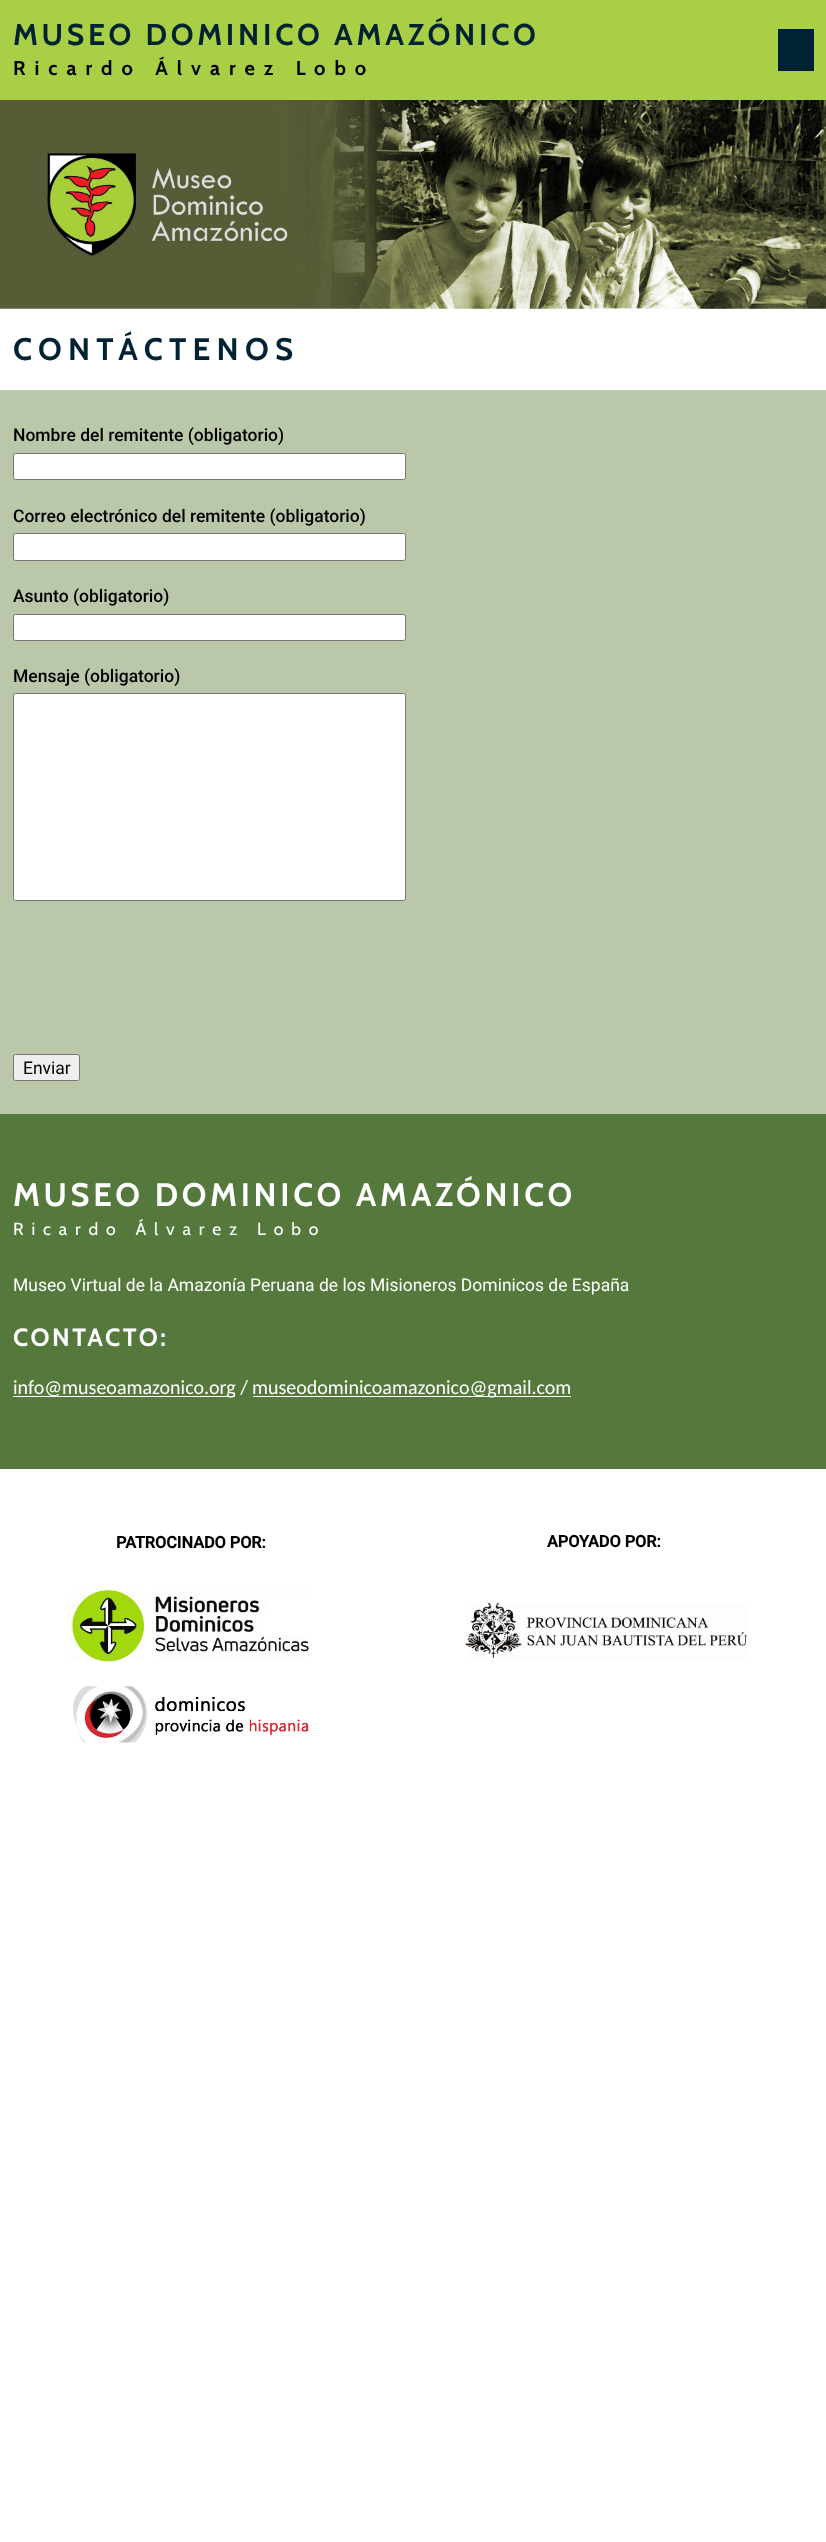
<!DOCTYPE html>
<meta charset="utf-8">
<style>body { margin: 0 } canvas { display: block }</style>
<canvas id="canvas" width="826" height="2542"></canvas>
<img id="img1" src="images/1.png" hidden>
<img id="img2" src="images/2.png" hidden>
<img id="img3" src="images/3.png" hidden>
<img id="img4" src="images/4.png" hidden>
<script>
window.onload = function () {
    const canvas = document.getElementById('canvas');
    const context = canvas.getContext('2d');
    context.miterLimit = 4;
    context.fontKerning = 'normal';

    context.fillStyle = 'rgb(255, 255, 255)';
    context.fillRect(0, 0, 826, 2542);
    context.fillStyle = 'rgb(168, 207, 69)';
    context.fillRect(0, 0, 826, 100);
    context.fillStyle = 'rgb(1, 34, 51)';
    context.fillRect(778, 29, 36, 42);
    context.drawImage(document.getElementById('img1'), 0, 100, 826, 209);
    context.fillStyle = 'rgb(187, 199, 169)';
    context.fillRect(0, 390, 826, 724);
    context.fillStyle = 'rgb(255, 255, 255)';
    context.beginPath();
    context.roundRect(13.5, 453.5, 392, 26, 2);
    context.fill();
    context.strokeStyle = 'rgb(118, 118, 118)';
    context.stroke();
    context.beginPath();
    context.roundRect(13.5, 533.5, 392, 27, 2);
    context.fill();
    context.stroke();
    context.beginPath();
    context.roundRect(13.5, 614.5, 392, 26, 2);
    context.fill();
    context.stroke();
    context.beginPath();
    context.roundRect(13.5, 693.5, 392, 207, 2);
    context.fill();
    context.stroke();
    context.fillStyle = 'rgb(239, 239, 239)';
    context.beginPath();
    context.roundRect(13.5, 1054.5, 66, 26, 2);
    context.fill();
    context.stroke();
    context.fillStyle = 'rgb(85, 121, 60)';
    context.fillRect(0, 1114, 826, 355);
    context.fillStyle = 'rgb(255, 255, 255)';
    context.fillRect(13, 1396, 222, 1);
    context.fillRect(253, 1396, 318, 1);
    context.drawImage(document.getElementById('img2'), 70, 1590, 239, 72);
    context.drawImage(document.getElementById('img3'), 73, 1686, 236, 57);
    context.drawImage(document.getElementById('img4'), 465, 1603, 283, 56);
    context.letterSpacing = '3.75px';
    context.font = 'bold 30px Cabin';
    context.fillStyle = 'rgb(1, 34, 51)';
    context.fillText('MUSEO DOMINICO AMAZÓNICO', 13, 45);
    context.letterSpacing = '0px';
    context.font = 'bold 20px Cabin';
    context.fillStyle = 'rgb(0, 0, 0)';
    context.fillText('R  i  c  a  r  d  o     Á  l  v  a  r  e  z     L', 13, 75);
    context.fillText('o  b  o', 314, 75);
    context.letterSpacing = '6.25px';
    context.font = 'bold 31.25px Cabin';
    context.fillStyle = 'rgb(1, 34, 51)';
    context.fillText('CONTÁCTENOS', 13, 360);
    context.letterSpacing = '0px';
    context.font = '500 17.5px Roboto';
    context.fillStyle = 'rgb(0, 0, 0)';
    context.fillText('Nombre del remitente (obligatorio)', 13, 441);
    context.fillText('Correo electrónico del remitente (obligatorio)', 13, 522);
    context.fillText('Asunto (obligatorio)', 13, 602);
    context.fillText('Mensaje (obligatorio)', 13, 682);
    context.font = '17.5px Roboto';
    context.fillText('Enviar', 23, 1074);
    context.letterSpacing = '3.75px';
    context.font = 'bold 32.5px Cabin';
    context.fillStyle = 'rgb(255, 255, 255)';
    context.fillText('MUSEO DOMINICO AMAZÓNICO', 13, 1206);
    context.letterSpacing = '0px';
    context.font = '17.5px Cabin';
    context.fillText('R  i  c  a  r  d  o     Á  l  v  a  r  e  z     L  o  b  o', 13, 1235);
    context.font = '17.5px Roboto';
    context.fillText('Museo Virtual de la Amazonía Peruana de los Misioneros Dominicos de España', 13, 1291);
    context.letterSpacing = '2.5px';
    context.font = 'bold 25px Cabin';
    context.fillText('CONTACTO:', 13, 1346);
    context.letterSpacing = '0px';
    context.font = '20px Carlito';
    context.fillText('info@museoamazonico.org /', 13, 1394);
    context.fillText('museodominicoamazonico@gmail.com', 252, 1394);
    context.font = 'bold 16.25px Roboto';
    context.fillStyle = 'rgb(0, 0, 0)';
    context.fillText('PATROCINADO POR:', 116, 1548);
    context.fillText('APOYADO POR:', 547, 1547);
};
</script>
